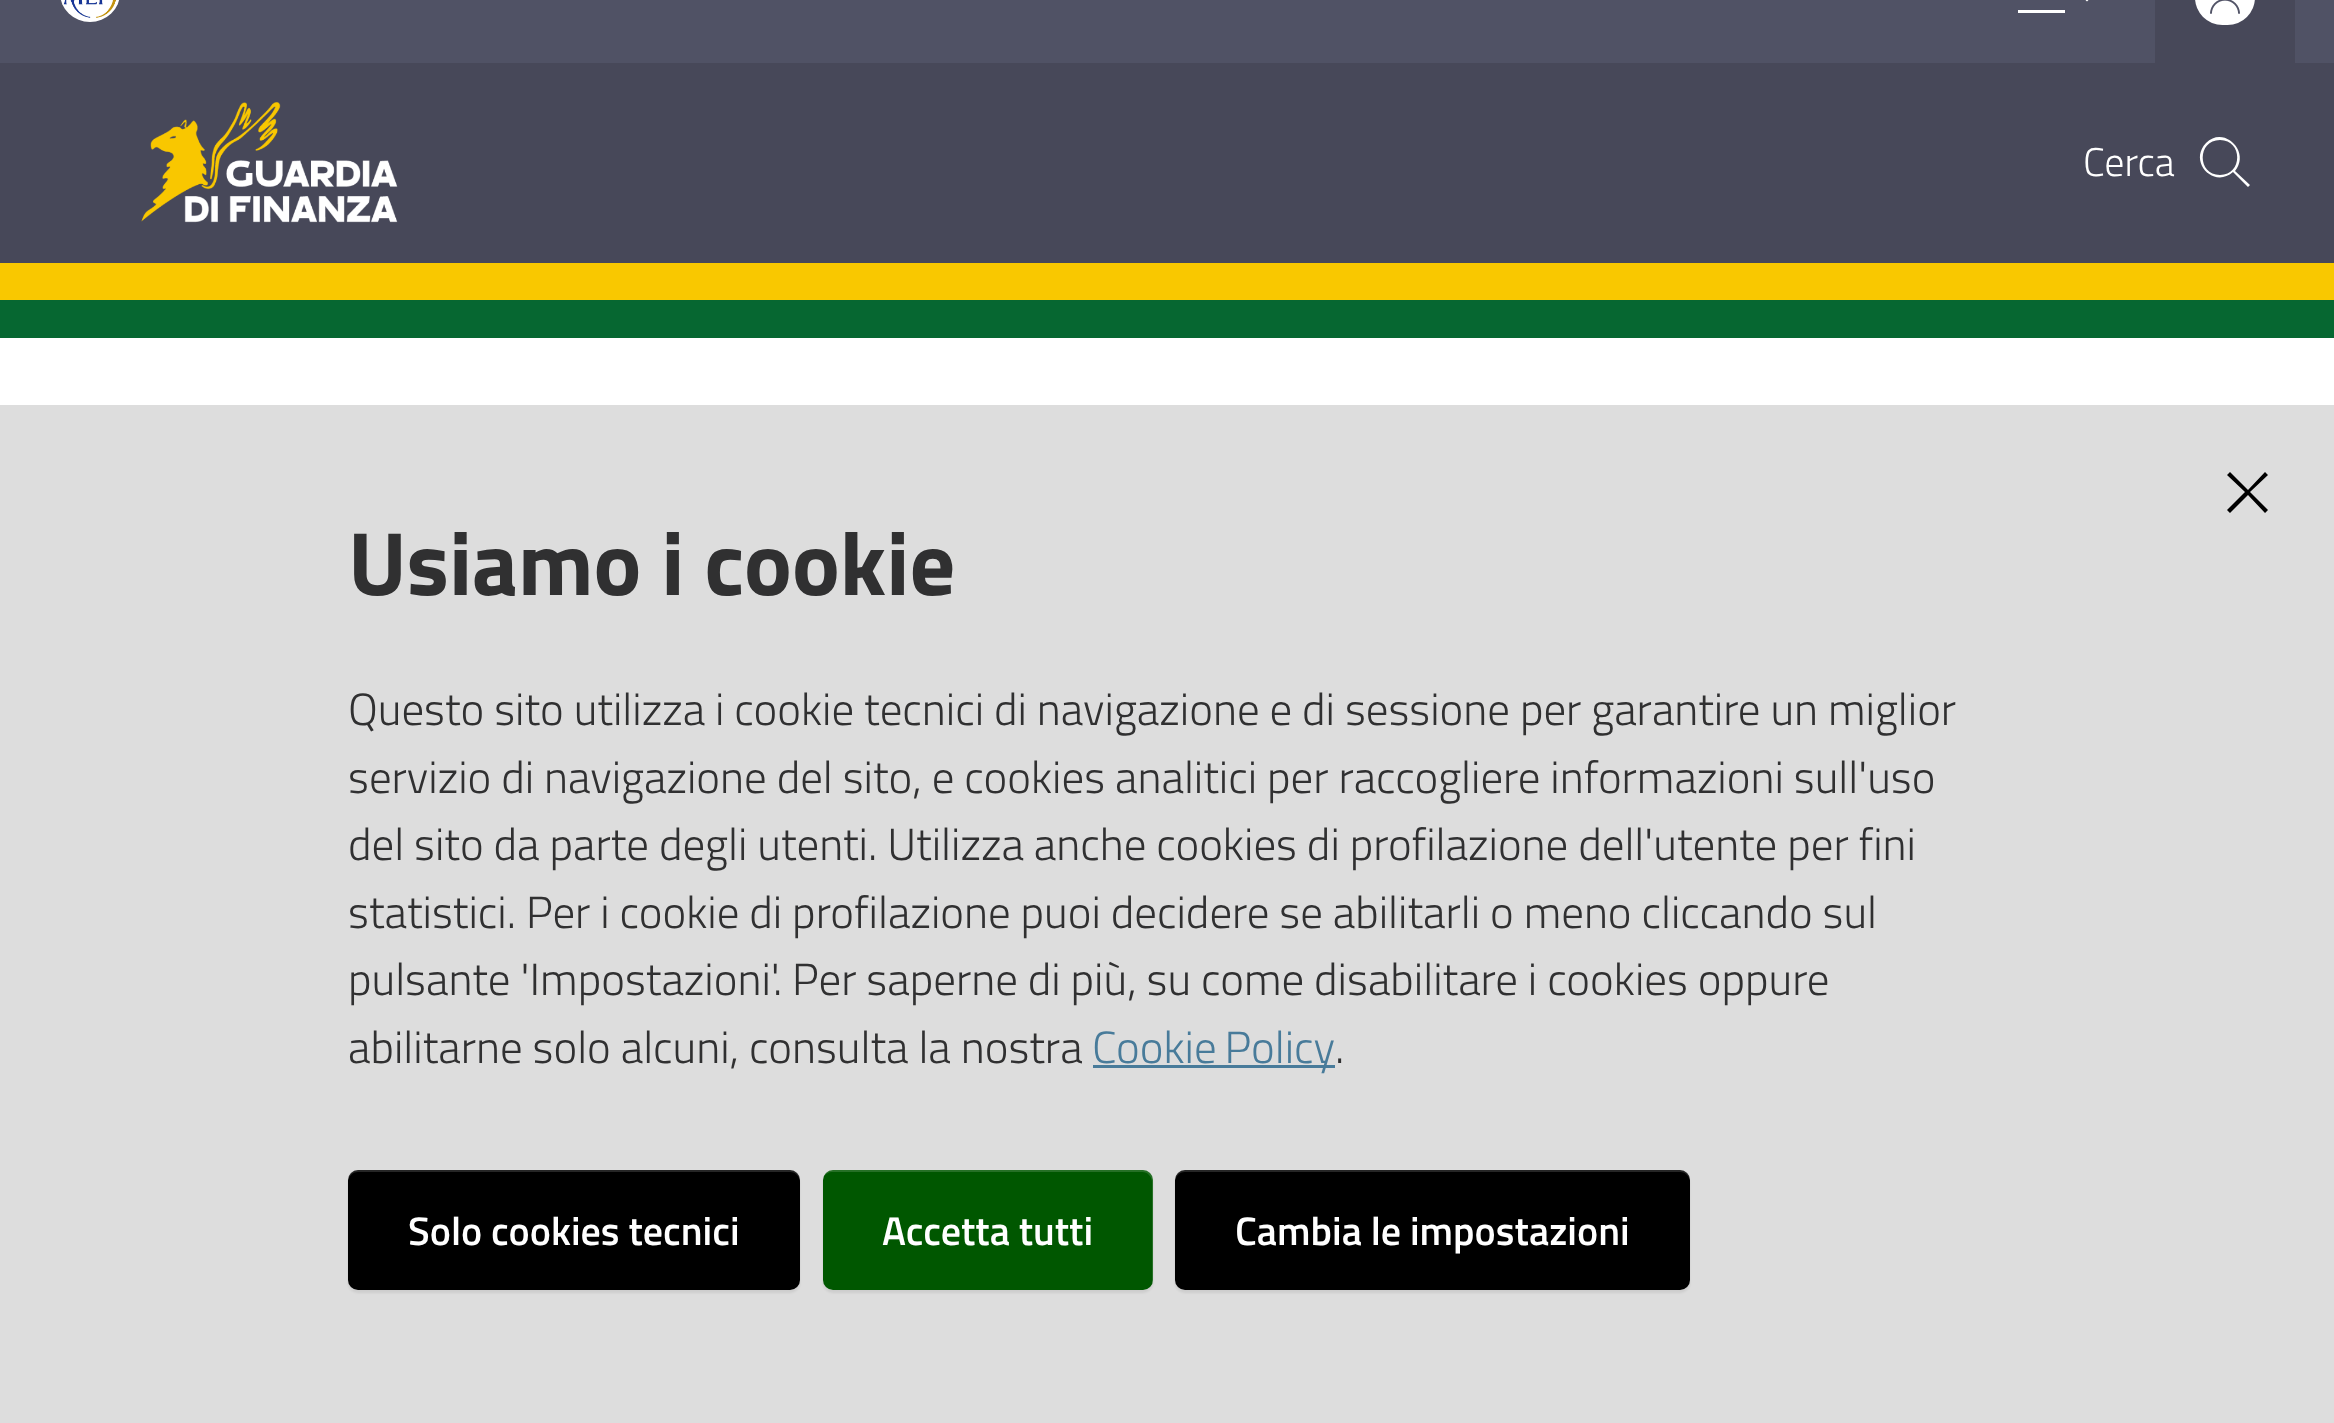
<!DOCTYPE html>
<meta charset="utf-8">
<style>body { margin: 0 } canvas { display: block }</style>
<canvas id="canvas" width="2334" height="1423"></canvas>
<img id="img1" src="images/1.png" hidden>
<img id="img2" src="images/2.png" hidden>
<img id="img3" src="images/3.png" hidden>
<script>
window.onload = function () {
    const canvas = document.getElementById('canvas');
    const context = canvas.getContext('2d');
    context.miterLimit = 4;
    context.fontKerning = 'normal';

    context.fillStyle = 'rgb(255, 255, 255)';
    context.fillRect(0, 0, 2334, 1423);
    context.fillStyle = 'rgb(6, 103, 49)';
    context.fillRect(0, 300, 2334, 38);
    context.fillStyle = 'rgb(80, 82, 101)';
    context.fillRect(0, 0, 2334, 63);
    context.drawImage(document.getElementById('img1'), 60, 0, 59, 22);
    context.fillStyle = 'rgb(255, 255, 255)';
    context.beginPath();
    context.moveTo(2087, 1.5);
    context.lineTo(2076, -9);
    context.lineTo(2077.5, -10.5);
    context.lineTo(2087, -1.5);
    context.lineTo(2096, -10.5);
    context.lineTo(2097.5, -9);
    context.closePath();
    context.fill();
    context.fillRect(2018, 10, 47, 3);
    context.fillStyle = 'rgb(71, 72, 89)';
    context.fillRect(2155, 0, 140, 63);
    context.fillStyle = 'rgb(255, 255, 255)';
    context.beginPath();
    context.roundRect(2195, -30, 60, 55, 30);
    context.fill();
    context.drawImage(document.getElementById('img2'), 2210, 0, 30, 14);
    context.fillStyle = 'rgb(249, 200, 0)';
    context.fillRect(0, 263, 2334, 37);
    context.fillStyle = 'rgb(71, 72, 89)';
    context.fillRect(0, 63, 2334, 200);
    context.drawImage(document.getElementById('img3'), 141, 102, 257, 121);
    context.fillStyle = 'rgb(255, 255, 255)';
    context.beginPath();
    context.moveTo(2250, 185);
    context.lineTo(2235, 171);
    context.bezierCurveTo(2251, 152, 2224, 125, 2206, 143);
    context.bezierCurveTo(2188, 162, 2214, 189, 2233, 172);
    context.lineTo(2248, 187);
    context.closePath();
    context.moveTo(2220, 175);
    context.bezierCurveTo(2197, 175, 2197, 140, 2220, 140);
    context.bezierCurveTo(2243, 140, 2243, 175, 2220, 175);
    context.closePath();
    context.fill();
    context.fillStyle = 'rgb(221, 221, 221)';
    context.fillRect(0, 405, 2334, 1018);
    context.fillStyle = 'rgb(0, 0, 0)';
    context.beginPath();
    context.moveTo(2268, 475);
    context.lineTo(2265, 472);
    context.lineTo(2248, 490);
    context.lineTo(2230, 472);
    context.lineTo(2227, 475);
    context.lineTo(2245, 492);
    context.lineTo(2227, 510);
    context.lineTo(2230, 513);
    context.lineTo(2248, 495);
    context.lineTo(2265, 513);
    context.lineTo(2268, 510);
    context.lineTo(2250, 492);
    context.closePath();
    context.fill('evenodd');
    context.fillStyle = 'rgb(72, 123, 154)';
    context.fillRect(1093, 1065, 242, 3);
    context.fillStyle = 'rgba(0, 0, 0, 0.07)';
    context.filter = 'blur(1px)';
    context.beginPath();
    context.roundRect(348, 1173, 452, 120, 10);
    context.fill();
    context.filter = 'none';
    context.fillStyle = 'rgb(0, 0, 0)';
    context.beginPath();
    context.roundRect(348, 1170, 452, 120, 10);
    context.fill();
    context.fillStyle = 'rgba(255, 255, 255, 0.15)';
    context.beginPath();
    context.moveTo(358, 1172);
    context.lineTo(790, 1172);
    context.bezierCurveTo(796, 1172, 800, 1177, 800, 1182);
    context.lineTo(800, 1180);
    context.bezierCurveTo(800, 1174, 796, 1170, 790, 1170);
    context.lineTo(358, 1170);
    context.bezierCurveTo(352, 1170, 348, 1174, 348, 1180);
    context.lineTo(348, 1182);
    context.bezierCurveTo(348, 1177, 352, 1172, 358, 1172);
    context.closePath();
    context.fill();
    context.fillStyle = 'rgba(0, 0, 0, 0.07)';
    context.filter = 'blur(1px)';
    context.beginPath();
    context.roundRect(823, 1173, 330, 120, 10);
    context.fill();
    context.filter = 'none';
    context.fillStyle = 'rgb(0, 87, 0)';
    context.beginPath();
    context.roundRect(823, 1170, 330, 120, 10);
    context.fill();
    context.fillStyle = 'rgba(255, 255, 255, 0.15)';
    context.beginPath();
    context.moveTo(832, 1172);
    context.lineTo(1142, 1172);
    context.bezierCurveTo(1148, 1172, 1152, 1177, 1152, 1182);
    context.lineTo(1152, 1282);
    context.lineTo(1152, 1285);
    context.bezierCurveTo(1152, 1284, 1153, 1282, 1153, 1280);
    context.lineTo(1153, 1180);
    context.bezierCurveTo(1153, 1174, 1149, 1170, 1143, 1170);
    context.lineTo(833, 1170);
    context.bezierCurveTo(828, 1170, 824, 1173, 823, 1177);
    context.bezierCurveTo(825, 1174, 829, 1172, 832, 1172);
    context.closePath();
    context.fill();
    context.fillStyle = 'rgba(0, 0, 0, 0.07)';
    context.filter = 'blur(1px)';
    context.beginPath();
    context.roundRect(1175, 1173, 515, 120, 10);
    context.fill();
    context.filter = 'none';
    context.fillStyle = 'rgb(0, 0, 0)';
    context.beginPath();
    context.roundRect(1175, 1170, 515, 120, 10);
    context.fill();
    context.fillStyle = 'rgba(255, 255, 255, 0.15)';
    context.beginPath();
    context.moveTo(1185, 1172);
    context.lineTo(1680, 1172);
    context.bezierCurveTo(1686, 1172, 1690, 1177, 1690, 1182);
    context.bezierCurveTo(1690, 1176, 1687, 1170, 1680, 1170);
    context.lineTo(1185, 1170);
    context.bezierCurveTo(1178, 1170, 1175, 1176, 1175, 1182);
    context.bezierCurveTo(1175, 1177, 1179, 1172, 1185, 1172);
    context.closePath();
    context.fill();
    context.font = '300 40px Titillium Web';
    context.fillStyle = 'rgb(255, 255, 255)';
    context.fillText('Cerca', 2083, 176);
    context.font = 'bold 90px Titillium Web';
    context.fillStyle = 'rgb(48, 48, 49)';
    context.fillText('Usiamo i cookie', 348, 595);
    context.font = '300 45px Titillium Web';
    context.fillText('Questo sito utilizza i cookie tecnici di navigazione e di sessione per garantire un miglior', 348, 725);
    context.fillText('servizio di navigazione del sito, e cookies analitici per raccogliere informazioni sull\'uso', 348, 793);
    context.fillText('del sito da parte degli utenti. Utilizza anche cookies di profilazione dell\'utente per fini', 348, 860);
    context.fillText('statistici. Per i cookie di profilazione puoi decidere se abilitarli o meno cliccando sul', 348, 928);
    context.fillText('pulsante \'Impostazioni\'. Per saperne di più, su come disabilitare i cookies oppure', 348, 995);
    context.fillText('abilitarne solo alcuni, consulta la nostra', 348, 1063);
    context.wordSpacing = '-2px';
    context.fillStyle = 'rgb(72, 123, 154)';
    context.fillText('Cookie Policy', 1092, 1063);
    context.wordSpacing = '0px';
    context.fillStyle = 'rgb(48, 48, 49)';
    context.fillText('.', 1335, 1063);
    context.font = '600 40px Titillium Web';
    context.fillStyle = 'rgb(255, 255, 255)';
    context.fillText('Solo cookies tecnici', 408, 1245);
    context.fillText('Accetta tutti', 882, 1245);
    context.fillText('Cambia le impostazioni', 1235, 1245);
};
</script>
